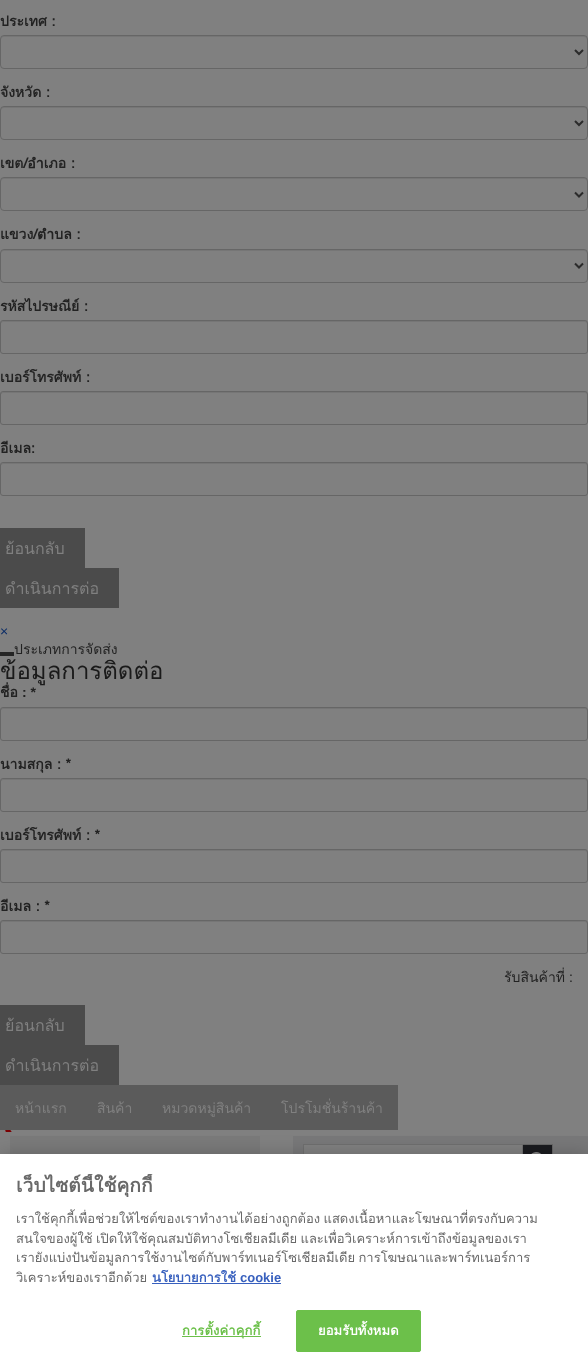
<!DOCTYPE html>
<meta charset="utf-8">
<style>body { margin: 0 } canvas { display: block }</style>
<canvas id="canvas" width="588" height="1362"></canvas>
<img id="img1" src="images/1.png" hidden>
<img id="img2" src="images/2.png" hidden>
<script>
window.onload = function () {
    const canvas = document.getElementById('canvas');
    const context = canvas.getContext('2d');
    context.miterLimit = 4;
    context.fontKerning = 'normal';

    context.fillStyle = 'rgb(128, 128, 128)';
    context.fillRect(0, 0, 588, 1362);
    context.fillStyle = 'rgb(118, 118, 118)';
    context.beginPath();
    context.moveTo(4, 37);
    context.lineTo(584, 37);
    context.bezierCurveTo(586, 37, 587, 38, 587, 40);
    context.lineTo(587, 39);
    context.bezierCurveTo(587, 37, 586, 36, 584, 36);
    context.lineTo(4, 36);
    context.bezierCurveTo(2, 36, 1, 37, 1, 39);
    context.lineTo(1, 40);
    context.bezierCurveTo(1, 38, 2, 37, 4, 37);
    context.closePath();
    context.fill();
    context.beginPath();
    context.roundRect(0.5, 35.5, 587, 33, 3.5);
    context.strokeStyle = 'rgb(102, 102, 102)';
    context.stroke();
    context.beginPath();
    context.moveTo(575, 50);
    context.lineTo(579, 54);
    context.lineTo(583, 50);
    context.strokeStyle = 'rgb(43, 43, 43)';
    context.lineWidth = 2;
    context.stroke();
    context.beginPath();
    context.moveTo(4, 108);
    context.lineTo(584, 108);
    context.bezierCurveTo(586, 108, 587, 109, 587, 111);
    context.lineTo(587, 110);
    context.bezierCurveTo(587, 108, 586, 107, 584, 107);
    context.lineTo(4, 107);
    context.bezierCurveTo(2, 107, 1, 108, 1, 110);
    context.lineTo(1, 111);
    context.bezierCurveTo(1, 109, 2, 108, 4, 108);
    context.closePath();
    context.fill();
    context.beginPath();
    context.roundRect(0.5, 106.5, 587, 33, 3.5);
    context.strokeStyle = 'rgb(102, 102, 102)';
    context.lineWidth = 1;
    context.stroke();
    context.beginPath();
    context.moveTo(575, 121);
    context.lineTo(579, 125);
    context.lineTo(583, 121);
    context.strokeStyle = 'rgb(43, 43, 43)';
    context.lineWidth = 2;
    context.stroke();
    context.beginPath();
    context.moveTo(4, 179);
    context.lineTo(584, 179);
    context.bezierCurveTo(586, 179, 587, 180, 587, 182);
    context.lineTo(587, 181);
    context.bezierCurveTo(587, 179, 586, 178, 584, 178);
    context.lineTo(4, 178);
    context.bezierCurveTo(2, 178, 1, 179, 1, 181);
    context.lineTo(1, 182);
    context.bezierCurveTo(1, 180, 2, 179, 4, 179);
    context.closePath();
    context.fill();
    context.beginPath();
    context.roundRect(0.5, 177.5, 587, 33, 3.5);
    context.strokeStyle = 'rgb(102, 102, 102)';
    context.lineWidth = 1;
    context.stroke();
    context.beginPath();
    context.moveTo(575, 192.5);
    context.lineTo(579, 196.5);
    context.lineTo(583, 192.5);
    context.strokeStyle = 'rgb(43, 43, 43)';
    context.lineWidth = 2;
    context.stroke();
    context.beginPath();
    context.moveTo(4, 251);
    context.lineTo(584, 251);
    context.bezierCurveTo(586, 251, 587, 252, 587, 254);
    context.lineTo(587, 253);
    context.bezierCurveTo(587, 251, 586, 250, 584, 250);
    context.lineTo(4, 250);
    context.bezierCurveTo(2, 250, 1, 251, 1, 253);
    context.lineTo(1, 254);
    context.bezierCurveTo(1, 252, 2, 251, 4, 251);
    context.closePath();
    context.fill();
    context.beginPath();
    context.roundRect(0.5, 249.5, 587, 33, 3.5);
    context.strokeStyle = 'rgb(102, 102, 102)';
    context.lineWidth = 1;
    context.stroke();
    context.beginPath();
    context.moveTo(575, 263.5);
    context.lineTo(579, 267.5);
    context.lineTo(583, 263.5);
    context.strokeStyle = 'rgb(43, 43, 43)';
    context.lineWidth = 2;
    context.stroke();
    context.beginPath();
    context.moveTo(3, 322);
    context.lineTo(585, 322);
    context.bezierCurveTo(586, 322, 587, 323, 587, 324);
    context.bezierCurveTo(587, 323, 587, 321, 585, 321);
    context.lineTo(3, 321);
    context.lineTo(1, 322);
    context.lineTo(1, 324);
    context.bezierCurveTo(1, 323, 2, 322, 3, 322);
    context.closePath();
    context.fill();
    context.beginPath();
    context.roundRect(0.5, 320.5, 587, 33, 2.5);
    context.strokeStyle = 'rgb(102, 102, 102)';
    context.lineWidth = 1;
    context.stroke();
    context.beginPath();
    context.moveTo(3, 393);
    context.lineTo(585, 393);
    context.bezierCurveTo(586, 393, 587, 394, 587, 395);
    context.bezierCurveTo(587, 394, 587, 392, 585, 392);
    context.lineTo(3, 392);
    context.lineTo(1, 393);
    context.lineTo(1, 395);
    context.bezierCurveTo(1, 394, 2, 393, 3, 393);
    context.closePath();
    context.fill();
    context.beginPath();
    context.roundRect(0.5, 391.5, 587, 33, 2.5);
    context.stroke();
    context.beginPath();
    context.moveTo(3, 464);
    context.lineTo(585, 464);
    context.bezierCurveTo(586, 464, 587, 465, 587, 466);
    context.bezierCurveTo(587, 465, 587, 463, 585, 463);
    context.lineTo(3, 463);
    context.lineTo(1, 464);
    context.lineTo(1, 466);
    context.bezierCurveTo(1, 465, 2, 464, 3, 464);
    context.closePath();
    context.fill();
    context.beginPath();
    context.roundRect(0.5, 462.5, 587, 33, 2.5);
    context.stroke();
    context.fillStyle = 'rgb(75, 75, 75)';
    context.fillRect(0, 528, 85, 40);
    context.fillRect(0, 568, 119, 40);
    context.fillStyle = 'rgb(37, 37, 37)';
    context.fillRect(0, 652, 14, 4);
    context.fillStyle = 'rgb(118, 118, 118)';
    context.beginPath();
    context.moveTo(3, 709);
    context.lineTo(585, 709);
    context.bezierCurveTo(586, 709, 587, 710, 587, 711);
    context.bezierCurveTo(587, 710, 587, 708, 585, 708);
    context.lineTo(3, 708);
    context.lineTo(1, 709);
    context.lineTo(1, 711);
    context.bezierCurveTo(1, 710, 2, 709, 3, 709);
    context.closePath();
    context.fill();
    context.beginPath();
    context.roundRect(0.5, 707.5, 587, 33, 2.5);
    context.stroke();
    context.beginPath();
    context.moveTo(3, 780);
    context.lineTo(585, 780);
    context.bezierCurveTo(586, 780, 587, 781, 587, 782);
    context.bezierCurveTo(587, 781, 587, 779, 585, 779);
    context.lineTo(3, 779);
    context.lineTo(1, 780);
    context.lineTo(1, 782);
    context.bezierCurveTo(1, 781, 2, 780, 3, 780);
    context.closePath();
    context.fill();
    context.beginPath();
    context.roundRect(0.5, 778.5, 587, 33, 2.5);
    context.stroke();
    context.beginPath();
    context.moveTo(3, 851);
    context.lineTo(585, 851);
    context.bezierCurveTo(586, 851, 587, 852, 587, 853);
    context.bezierCurveTo(587, 852, 587, 850, 585, 850);
    context.lineTo(3, 850);
    context.lineTo(1, 851);
    context.lineTo(1, 853);
    context.bezierCurveTo(1, 852, 2, 851, 3, 851);
    context.closePath();
    context.fill();
    context.beginPath();
    context.roundRect(0.5, 849.5, 587, 33, 2.5);
    context.stroke();
    context.beginPath();
    context.moveTo(3, 922);
    context.lineTo(585, 922);
    context.bezierCurveTo(586, 922, 587, 923, 587, 924);
    context.bezierCurveTo(587, 923, 587, 921, 585, 921);
    context.lineTo(3, 921);
    context.lineTo(1, 922);
    context.lineTo(1, 924);
    context.bezierCurveTo(1, 923, 2, 922, 3, 922);
    context.closePath();
    context.fill();
    context.beginPath();
    context.roundRect(0.5, 920.5, 587, 33, 2.5);
    context.stroke();
    context.fillStyle = 'rgb(75, 75, 75)';
    context.fillRect(0, 1005, 85, 40);
    context.fillRect(0, 1045, 119, 40);
    context.drawImage(document.getElementById('img1'), 5, 1130, 7, 2);
    context.fillStyle = 'rgb(91, 91, 91)';
    context.fillRect(0, 1085, 398, 45);
    context.fillStyle = 'rgb(122, 122, 122)';
    context.fillRect(10, 1136, 250, 18);
    context.fillStyle = 'rgb(120, 120, 121)';
    context.fillRect(293, 1136, 295, 18);
    context.fillStyle = 'rgb(128, 128, 128)';
    context.fillRect(304, 1145, 218, 9);
    context.strokeStyle = 'rgb(111, 111, 111)';
    context.strokeRect(303.5, 1144.5, 219, 29);
    context.fillStyle = 'rgb(26, 27, 31)';
    context.fillRect(523, 1145, 29, 9);
    context.drawImage(document.getElementById('img2'), 531, 1152, 10, 2);
    context.fillStyle = 'rgb(102, 102, 102)';
    context.fillRect(523, 1144, 30, 1);
    context.fillRect(552, 1144, 1, 10);
    context.fillStyle = 'rgba(0, 0, 0, 0.2)';
    context.filter = 'blur(9px)';
    context.beginPath();
    context.rect(0, 1154, 588, 208);
    context.fill();
    context.filter = 'none';
    context.fillStyle = 'rgb(255, 255, 255)';
    context.fillRect(0, 1154, 588, 208);
    context.fillStyle = 'rgb(56, 96, 190)';
    context.fillRect(152, 1283, 129, 1);
    context.fillStyle = 'rgb(108, 192, 74)';
    context.fillRect(182, 1336, 79, 1);
    context.beginPath();
    context.roundRect(296.5, 1310.5, 124, 41, 1.5);
    context.fill();
    context.strokeStyle = 'rgb(108, 192, 74)';
    context.stroke();
    context.font = 'bold 14px Loma';
    context.fillStyle = 'rgb(34, 34, 34)';
    context.fillText('ประเทศ :', 0, 26);
    context.fillText('จังหวัด :', 0, 97);
    context.fillText('เขต/อำเภอ :', 0, 168);
    context.fillText('แขวง/ตำบล :', 0, 239);
    context.fillText('รหัสไปรษณีย์ :', 0, 311);
    context.fillText('เบอร์โทรศัพท์ :', 0, 382);
    context.fillText('อีเมล:', 0, 453);
    context.font = '16px Loma';
    context.fillStyle = 'rgb(128, 128, 128)';
    context.fillText('ย้อนกลับ', 5, 554);
    context.fillText('ดำเนินการต่อ', 5, 594);
    context.font = '14px Liberation Sans';
    context.fillStyle = 'rgb(9, 43, 102)';
    context.fillText('×', 0, 636);
    context.font = '14px Loma';
    context.fillStyle = 'rgb(34, 34, 34)';
    context.fillText('ประเภทการจัดส่ง', 14, 654);
    context.font = '24px Loma';
    context.fillStyle = 'rgb(26, 26, 26)';
    context.fillText('ข้อมูลการติดต่อ', 0, 679);
    context.font = 'bold 14px Loma';
    context.fillStyle = 'rgb(34, 34, 34)';
    context.fillText('ชื่อ', 0, 697);
    context.font = 'bold 14px Liberation Sans';
    context.fillText(': *', 22, 697);
    context.font = 'bold 14px Loma';
    context.fillText('นามสกุล : *', 0, 769);
    context.fillText('เบอร์โทรศัพท์ : *', 0, 840);
    context.fillText('อีเมล : *', 0, 911);
    context.font = '14px Loma';
    context.fillText('รับสินค้าที่', 504, 982);
    context.font = '14px Liberation Sans';
    context.fillText(':', 569, 982);
    context.font = '16px Loma';
    context.fillStyle = 'rgb(128, 128, 128)';
    context.fillText('ย้อนกลับ', 5, 1031);
    context.fillText('ดำเนินการต่อ', 5, 1071);
    context.font = '14px Loma';
    context.fillText('หน้าแรก', 15, 1113);
    context.fillText('สินค้า', 97, 1113);
    context.fillText('หมวดหมู่สินค้า', 162, 1113);
    context.fillText('โปรโมชั่นร้านค้า', 281, 1113);
    context.save();
    context.beginPath();
    context.rect(16, 1174, 527, 126);
    context.clip();
    context.font = 'bold 19.25px Loma';
    context.fillStyle = 'rgb(105, 105, 105)';
    context.fillText('เว็บไซต์นี้ใช้คุกกี้', 16, 1192);
    context.restore();
    context.wordSpacing = '-1px';
    context.font = '13px Loma';
    context.fillStyle = 'rgb(105, 105, 105)';
    context.fillText('เราใช้คุกกี้เพื่อช่วยให้ไซต์ของเราทำงานได้อย่างถูกต้อง แสดงเนื้อหาและโฆษณาที่ตรงกับความ', 16, 1223);
    context.fillText('สนใจของผู้ใช้ เปิดให้ใช้คุณสมบัติทางโซเชียลมีเดีย และเพื่อวิเคราะห์การเข้าถึงข้อมูลของเรา', 16, 1243);
    context.fillText('เรายังแบ่งปันข้อมูลการใช้งานไซต์กับพาร์ทเนอร์โซเชียลมีเดีย การโฆษณาและพาร์ทเนอร์การ', 16, 1262);
    context.save();
    context.beginPath();
    context.rect(16, 1174, 527, 126);
    context.clip();
    context.wordSpacing = '0px';
    context.fillText('วิเคราะห์ของเราอีกด้วย', 16, 1282);
    context.restore();
    context.wordSpacing = '0px';
    context.font = 'bold 13px Loma';
    context.fillStyle = 'rgb(56, 96, 190)';
    context.fillText('นโยบายการใช้', 152, 1282);
    context.font = 'bold 13px Liberation Sans';
    context.fillText('cookie', 240, 1282);
    context.letterSpacing = '0.1px';
    context.font = 'bold 13px Loma';
    context.fillStyle = 'rgb(108, 192, 74)';
    context.fillText('การตั้งค่าคุกกี้', 182, 1335);
    context.fillStyle = 'rgb(255, 255, 255)';
    context.fillText('ยอมรับทั้งหมด', 318, 1335);
};
</script>
